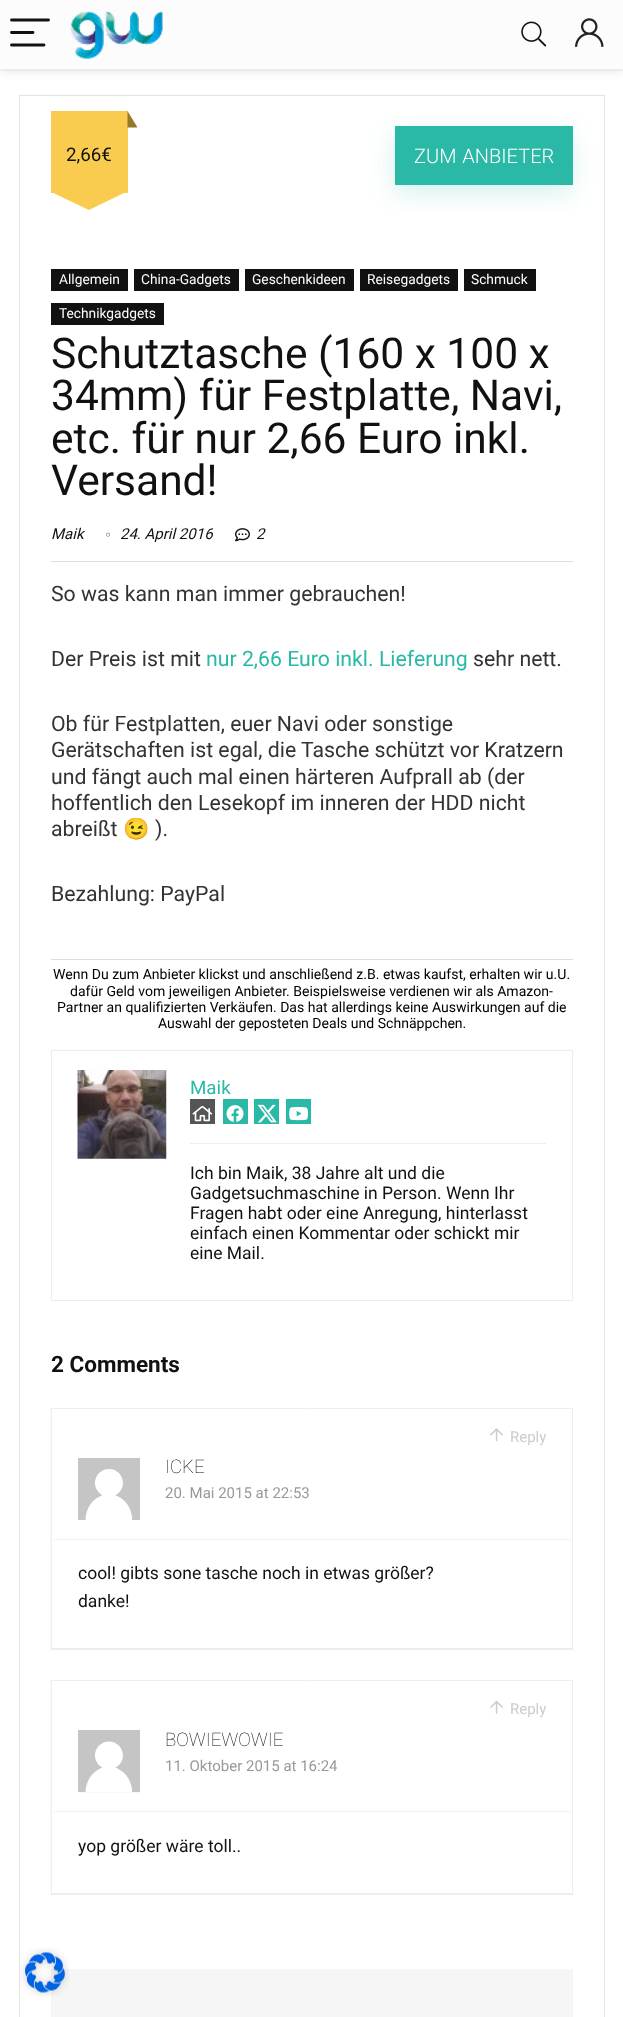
<!DOCTYPE html>
<meta charset="utf-8">
<style>body { margin: 0 } canvas { display: block }</style>
<canvas id="canvas" width="623" height="2017"></canvas>
<img id="img1" src="images/1.png" hidden>
<img id="img2" src="images/2.png" hidden>
<img id="img3" src="images/3.png" hidden>
<img id="img4" src="images/4.png" hidden>
<img id="img5" src="images/5.png" hidden>
<img id="img6" src="images/6.png" hidden>
<img id="img7" src="images/7.png" hidden>
<img id="img8" src="images/8.png" hidden>
<img id="img9" src="images/9.png" hidden>
<img id="img10" src="images/10.png" hidden>
<img id="img11" src="images/11.png" hidden>
<img id="img12" src="images/12.png" hidden>
<img id="img13" src="images/13.png" hidden>
<img id="img14" src="images/14.png" hidden>
<img id="img15" src="images/15.png" hidden>
<script>
window.onload = function () {
    const canvas = document.getElementById('canvas');
    const context = canvas.getContext('2d');
    context.miterLimit = 4;
    context.fontKerning = 'normal';

    context.fillStyle = 'rgb(255, 255, 255)';
    context.fillRect(0, 0, 623, 2017);
    context.strokeStyle = 'rgb(247, 247, 247)';
    context.strokeRect(-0.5, -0.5, 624, 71);
    context.fillStyle = 'rgba(0, 0, 0, 0.1)';
    context.filter = 'blur(5px)';
    context.beginPath();
    context.rect(0, 1, 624, 70);
    context.fill();
    context.filter = 'none';
    context.fillStyle = 'rgb(252, 252, 252)';
    context.fillRect(0, 0, 623, 69);
    context.fillStyle = 'rgb(238, 238, 238)';
    context.fillRect(0, 69, 623, 1);
    context.beginPath();
    context.moveTo(11.5, 20);
    context.lineTo(48.5, 20);
    context.moveTo(11.5, 32.5);
    context.lineTo(33, 32.5);
    context.moveTo(11.5, 45);
    context.lineTo(44, 45);
    context.strokeStyle = 'rgb(17, 17, 17)';
    context.lineWidth = 2.8;
    context.lineCap = 'round';
    context.stroke();
    context.drawImage(document.getElementById('img1'), 70, 11, 93, 48);
    context.drawImage(document.getElementById('img2'), 521, 21, 26, 26);
    context.drawImage(document.getElementById('img3'), 575, 18, 29, 29);
    context.strokeStyle = 'rgb(227, 227, 227)';
    context.lineWidth = 1;
    context.strokeRect(19.5, 95.5, 585, 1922);
    context.fillStyle = 'rgb(249, 204, 80)';
    context.fillRect(51, 111, 77, 82);
    context.fillStyle = 'rgb(150, 120, 38)';
    context.beginPath();
    context.moveTo(127.5, 127.5);
    context.lineTo(127.5, 111);
    context.lineTo(137.5, 127.5);
    context.closePath();
    context.fill();
    context.fillStyle = 'rgb(249, 204, 80)';
    context.beginPath();
    context.moveTo(51, 192);
    context.lineTo(126, 192);
    context.lineTo(89, 210);
    context.closePath();
    context.fill();
    context.fillStyle = 'rgba(41, 185, 166, 0.2)';
    context.filter = 'blur(12px)';
    context.beginPath();
    context.rect(394, 134, 177, 59);
    context.fill();
    context.filter = 'none';
    context.fillStyle = 'rgb(41, 185, 166)';
    context.fillRect(395, 126, 178, 59);
    context.fillStyle = 'rgb(17, 17, 17)';
    context.fillRect(51, 269, 77, 22);
    context.fillRect(134, 269, 105, 22);
    context.fillRect(245, 269, 109, 22);
    context.fillRect(360, 269, 98, 22);
    context.fillRect(464, 269, 72, 22);
    context.fillRect(51, 303, 113, 22);
    context.drawImage(document.getElementById('img4'), 106, 532, 4, 5);
    context.drawImage(document.getElementById('img5'), 235, 528, 15, 14);
    context.fillStyle = 'rgb(221, 221, 221)';
    context.fillRect(51, 561, 522, 1);
    context.fillRect(51, 959, 522, 1);
    context.strokeStyle = 'rgb(237, 237, 237)';
    context.strokeRect(51.5, 1050.5, 521, 250);
    context.drawImage(document.getElementById('img6'), 77, 1070, 90, 89);
    context.fillStyle = 'rgb(238, 238, 238)';
    context.fillRect(190, 1143, 356, 1);
    context.fillStyle = 'rgb(85, 85, 85)';
    context.fillRect(190, 1099, 25, 25);
    context.drawImage(document.getElementById('img7'), 192, 1106, 21, 16);
    context.fillStyle = 'rgb(41, 185, 166)';
    context.fillRect(223, 1099, 25, 25);
    context.drawImage(document.getElementById('img8'), 226, 1105, 18, 17);
    context.fillRect(254, 1099, 25, 25);
    context.drawImage(document.getElementById('img9'), 257, 1104, 20, 19);
    context.fillRect(286, 1099, 25, 25);
    context.drawImage(document.getElementById('img10'), 289, 1107, 19, 14);
    context.fillStyle = 'rgb(237, 237, 237)';
    context.filter = 'blur(0.5px)';
    context.beginPath();
    context.rect(51, 1409, 522, 241);
    context.fill();
    context.filter = 'none';
    context.fillStyle = 'rgb(255, 255, 255)';
    context.beginPath();
    context.rect(51.5, 1408.5, 521, 240);
    context.fill();
    context.stroke();
    context.fillStyle = 'rgb(240, 240, 240)';
    context.fillRect(53, 1539, 518, 1);
    context.drawImage(document.getElementById('img11'), 490, 1428, 13, 14);
    context.drawImage(document.getElementById('img12'), 78, 1458, 62, 62);
    context.fillStyle = 'rgb(237, 237, 237)';
    context.filter = 'blur(0.5px)';
    context.beginPath();
    context.rect(51, 1681, 522, 214);
    context.fill();
    context.filter = 'none';
    context.fillStyle = 'rgb(255, 255, 255)';
    context.beginPath();
    context.rect(51.5, 1680.5, 521, 213);
    context.fill();
    context.stroke();
    context.fillStyle = 'rgb(240, 240, 240)';
    context.fillRect(53, 1811, 518, 1);
    context.drawImage(document.getElementById('img13'), 490, 1700, 13, 14);
    context.drawImage(document.getElementById('img14'), 78, 1730, 62, 63);
    context.fillStyle = 'rgb(246, 246, 246)';
    context.fillRect(51, 1969, 522, 48);
    context.drawImage(document.getElementById('img15'), 20, 1948, 50, 49);
    context.font = '18.75px Roboto';
    context.fillStyle = 'rgb(17, 17, 17)';
    context.fillText('2,66€', 66, 161);
    context.wordSpacing = '1px';
    context.font = '300 20px Roboto';
    context.fillStyle = 'rgb(255, 255, 255)';
    context.fillText('ZUM ANBIETER', 414, 163);
    context.wordSpacing = '0px';
    context.font = '13.75px Roboto';
    context.fillText('Allgemein', 59, 284);
    context.fillText('China-Gadgets', 141, 284);
    context.fillText('Geschenkideen', 252, 284);
    context.fillText('Reisegadgets', 367, 284);
    context.fillText('Schmuck', 471, 284);
    context.fillText('Technikgadgets', 59, 318);
    context.font = '42.5px Roboto';
    context.fillStyle = 'rgb(17, 17, 17)';
    context.fillText('Schutztasche (160 x 100 x', 51, 368);
    context.fillText('34mm) für Festplatte, Navi,', 51, 410);
    context.fillText('etc. für nur 2,66 Euro inkl.', 51, 453);
    context.fillText('Versand!', 51, 495);
    context.font = 'italic 15px Roboto';
    context.fillText('Maik', 51, 539);
    context.fillText('24. April 2016', 120, 539);
    context.fillText('2', 256, 539);
    context.font = '21.25px Roboto';
    context.fillStyle = 'rgb(51, 51, 51)';
    context.fillText('So was kann man immer gebrauchen!', 51, 601);
    context.fillText('Der Preis ist mit', 51, 666);
    context.fillStyle = 'rgb(41, 185, 166)';
    context.fillText('nur 2,66 Euro inkl. Lieferung', 206, 666);
    context.fillStyle = 'rgb(51, 51, 51)';
    context.fillText('sehr nett.', 473, 666);
    context.fillText('Ob für Festplatten, euer Navi oder sonstige', 51, 731);
    context.fillText('Gerätschaften ist egal, die Tasche schützt vor Kratzern', 51, 757);
    context.fillText('und fängt auch mal einen härteren Aufprall ab (der', 51, 784);
    context.fillText('hoffentlich den Lesekopf im inneren der HDD nicht', 51, 810);
    context.fillText('abreißt', 51, 836);
    context.font = '21.25px Noto Color Emoji';
    context.fillText('😉', 123, 836);
    context.font = '21.25px Roboto';
    context.fillText(').', 155, 836);
    context.fillText('Bezahlung: PayPal', 51, 901);
    context.font = '14.05px Roboto';
    context.fillStyle = 'rgb(0, 0, 0)';
    context.fillText('Wenn Du zum Anbieter klickst und anschließend z.B. etwas kaufst, erhalten wir u.U.', 53, 979);
    context.fillText('dafür Geld vom jeweiligen Anbieter. Beispielsweise verdienen wir als Amazon-', 70, 996);
    context.fillText('Partner an qualifizierten Verkäufen. Das hat allerdings keine Auswirkungen auf die', 57, 1012);
    context.fillText('Auswahl der geposteten Deals und Schnäppchen.', 158, 1028);
    context.font = '18.75px Roboto';
    context.fillStyle = 'rgb(41, 185, 166)';
    context.fillText('Maik', 190, 1094);
    context.font = '17.5px Roboto';
    context.fillStyle = 'rgb(17, 17, 17)';
    context.fillText('Ich bin Maik, 38 Jahre alt und die', 190, 1179);
    context.fillText('Gadgetsuchmaschine in Person. Wenn Ihr', 190, 1199);
    context.fillText('Fragen habt oder eine Anregung, hinterlasst', 190, 1219);
    context.fillText('einfach einen Kommentar oder schickt mir', 190, 1239);
    context.fillText('eine Mail.', 190, 1259);
    context.font = 'bold 22.5px Roboto';
    context.fillText('2 Comments', 51, 1372);
    context.font = '15px Roboto';
    context.fillStyle = 'rgb(204, 204, 204)';
    context.fillText('Reply', 510, 1442);
    context.font = '100 18.75px Roboto';
    context.fillStyle = 'rgb(0, 0, 0)';
    context.fillText('ICKE', 165, 1473);
    context.font = '15px Roboto';
    context.fillStyle = 'rgb(153, 153, 153)';
    context.fillText('20. Mai 2015 at 22:53', 165, 1498);
    context.font = '17.5px Roboto';
    context.fillStyle = 'rgb(17, 17, 17)';
    context.fillText('cool! gibts sone tasche noch in etwas größer?', 78, 1579);
    context.fillText('danke!', 78, 1607);
    context.font = '15px Roboto';
    context.fillStyle = 'rgb(204, 204, 204)';
    context.fillText('Reply', 510, 1714);
    context.font = '100 18.75px Roboto';
    context.fillStyle = 'rgb(0, 0, 0)';
    context.fillText('BOWIEWOWIE', 165, 1746);
    context.font = '15px Roboto';
    context.fillStyle = 'rgb(153, 153, 153)';
    context.fillText('11. Oktober 2015 at 16:24', 165, 1771);
    context.font = '17.5px Roboto';
    context.fillStyle = 'rgb(17, 17, 17)';
    context.fillText('yop größer wäre toll..', 78, 1852);
};
</script>
